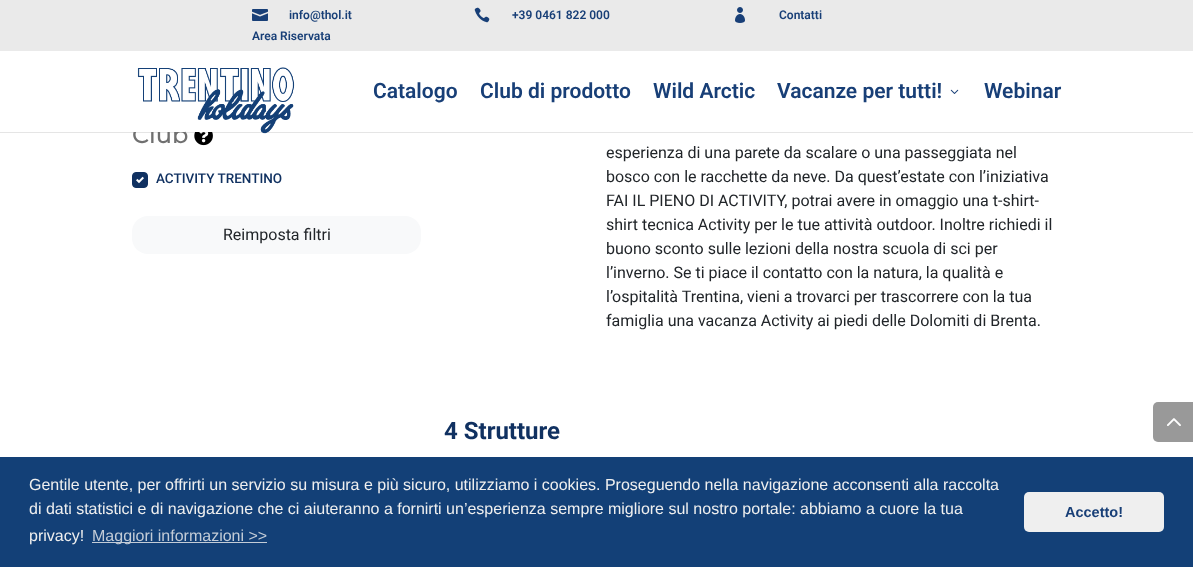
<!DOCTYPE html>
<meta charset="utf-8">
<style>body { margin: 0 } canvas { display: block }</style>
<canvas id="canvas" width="1193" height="567"></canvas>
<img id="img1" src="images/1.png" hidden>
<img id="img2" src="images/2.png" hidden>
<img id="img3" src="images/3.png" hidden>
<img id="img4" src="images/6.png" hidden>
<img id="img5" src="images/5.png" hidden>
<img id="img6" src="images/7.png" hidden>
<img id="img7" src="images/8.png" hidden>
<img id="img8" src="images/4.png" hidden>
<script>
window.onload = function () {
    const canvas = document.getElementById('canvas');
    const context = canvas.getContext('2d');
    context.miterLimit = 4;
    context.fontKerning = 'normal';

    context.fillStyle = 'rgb(255, 255, 255)';
    context.fillRect(0, 0, 1193, 567);
    context.fillStyle = 'rgb(234, 234, 234)';
    context.fillRect(0, 0, 1193, 51);
    context.drawImage(document.getElementById('img1'), 252, 9, 16, 12);
    context.drawImage(document.getElementById('img2'), 474, 7, 16, 16);
    context.drawImage(document.getElementById('img3'), 735, 7, 10, 16);
    context.drawImage(document.getElementById('img4'), 194, 132, 19, 14);
    context.fillStyle = 'rgba(0, 0, 0, 0.1)';
    context.fillRect(0, 132, 1193, 1);
    context.drawImage(document.getElementById('img5'), 950, 89, 9, 5);
    context.fillStyle = 'rgb(16, 49, 97)';
    context.beginPath();
    context.roundRect(132.5, 172.5, 15, 15, 3.5);
    context.fill();
    context.strokeStyle = 'rgb(16, 49, 97)';
    context.stroke();
    context.drawImage(document.getElementById('img6'), 136, 176, 8, 8);
    context.fillStyle = 'rgb(248, 249, 250)';
    context.beginPath();
    context.roundRect(132, 216, 289, 38, 16);
    context.fill();
    context.fillStyle = 'rgb(153, 153, 153)';
    context.beginPath();
    context.roundRect(1153, 402, 40, 40, [5, 0, 0, 5]);
    context.fill();
    context.drawImage(document.getElementById('img7'), 1167, 418, 14, 8);
    context.fillStyle = 'rgb(19, 64, 119)';
    context.fillRect(0, 457, 1193, 110);
    context.fillStyle = 'rgb(195, 204, 215)';
    context.fillRect(92, 542, 175, 1);
    context.fillStyle = 'rgb(239, 239, 239)';
    context.beginPath();
    context.roundRect(1024, 492, 140, 40, 5);
    context.fill();
    context.font = '600 12px Roboto';
    context.fillStyle = 'rgb(24, 63, 119)';
    context.fillText('info@thol.it', 289, 19);
    context.fillText('+39 0461 822 000', 512, 19);
    context.fillText('Contatti', 779, 19);
    context.fillText('Area Riservata', 252, 40);
    context.font = '600 21px Roboto';
    context.fillText('Catalogo', 373, 98);
    context.fillText('Club di prodotto', 480, 98);
    context.fillText('Wild Arctic', 653, 98);
    context.fillText('Vacanze per tutti!', 777, 98);
    context.fillText('Webinar', 984, 98);
    context.font = '500 24px Montserrat';
    context.fillStyle = 'rgb(112, 112, 112)';
    context.fillText('Club', 132, 143);
    context.fillStyle = 'rgb(255, 255, 255)';
    context.fillRect(133, 125, 52, 7);
    context.drawImage(document.getElementById('img8'), 137, 67, 158, 67);
    context.font = '500 13.5px Roboto';
    context.fillStyle = 'rgb(16, 49, 97)';
    context.fillText('ACTIVITY TRENTINO', 156, 183);
    context.font = '16px Roboto';
    context.fillStyle = 'rgb(33, 37, 41)';
    context.fillText('Reimposta filtri', 223, 240);
    context.fillText('esperienza di una parete da scalare o una passeggiata nel', 606, 158);
    context.fillText('bosco con le racchette da neve. Da quest’estate con l’iniziativa', 606, 182);
    context.fillText('FAI IL PIENO DI ACTIVITY, potrai avere in omaggio una t-shirt-', 606, 206);
    context.fillText('shirt tecnica Activity per le tue attività outdoor. Inoltre richiedi il', 606, 230);
    context.fillText('buono sconto sulle lezioni della nostra scuola di sci per', 606, 254);
    context.fillText('l’inverno. Se ti piace il contatto con la natura, la qualità e', 606, 278);
    context.fillText('l’ospitalità Trentina, vieni a trovarci per trascorrere con la tua', 606, 302);
    context.fillText('famiglia una vacanza Activity ai piedi delle Dolomiti di Brenta.', 606, 326);
    context.font = 'bold 24px Roboto';
    context.fillStyle = 'rgb(16, 49, 97)';
    context.fillText('4 Strutture', 444, 439);
    context.font = '16px Liberation Sans';
    context.fillStyle = 'rgb(239, 239, 239)';
    context.fillText('Gentile utente, per offrirti un servizio su misura e più sicuro, utilizziamo i cookies. Proseguendo nella navigazione acconsenti alla raccolta', 29, 490);
    context.fillText('di dati statistici e di navigazione che ci aiuteranno a fornirti un’esperienza sempre migliore sul nostro portale: abbiamo a cuore la tua', 29, 514);
    context.fillText('privacy!', 29, 541);
    context.fillStyle = 'rgb(195, 204, 215)';
    context.fillText('Maggiori informazioni >>', 92, 541);
    context.font = 'bold 14.5px Liberation Sans';
    context.fillStyle = 'rgb(24, 63, 119)';
    context.fillText('Accetto!', 1065, 517);
};
</script>
